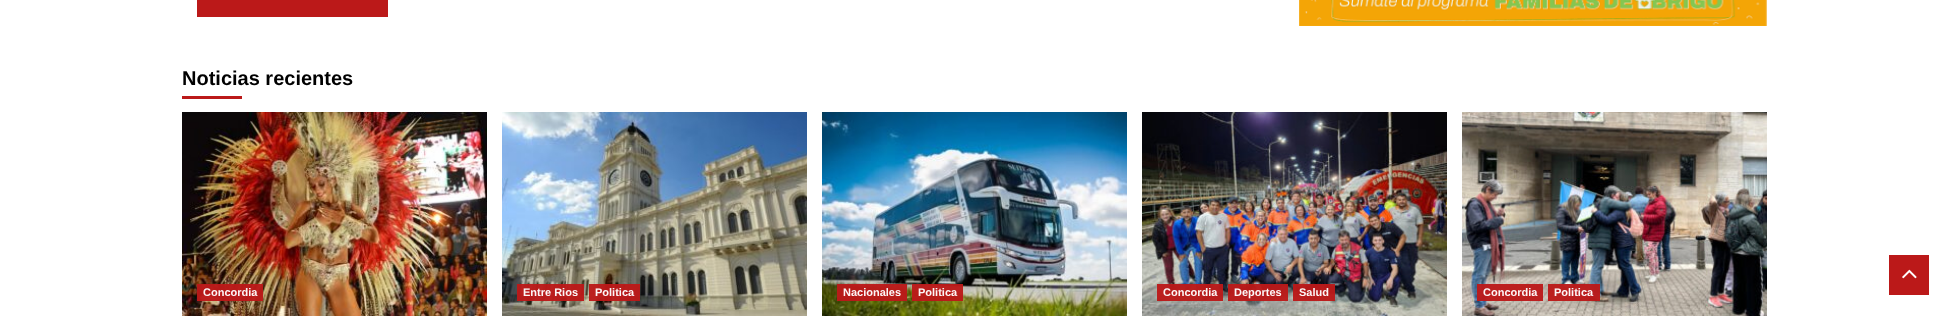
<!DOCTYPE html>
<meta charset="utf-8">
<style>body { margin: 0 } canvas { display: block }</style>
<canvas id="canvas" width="1949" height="335"></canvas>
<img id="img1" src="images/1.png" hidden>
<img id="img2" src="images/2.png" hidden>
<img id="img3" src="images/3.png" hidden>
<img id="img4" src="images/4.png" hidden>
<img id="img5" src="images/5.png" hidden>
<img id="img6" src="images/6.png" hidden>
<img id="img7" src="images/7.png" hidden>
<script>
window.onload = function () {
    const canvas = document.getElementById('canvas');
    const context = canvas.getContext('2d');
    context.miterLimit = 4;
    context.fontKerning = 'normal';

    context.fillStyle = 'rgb(255, 255, 255)';
    context.fillRect(0, 0, 1949, 335);
    context.fillStyle = 'rgb(187, 25, 25)';
    context.fillRect(197, 0, 191, 17);
    context.drawImage(document.getElementById('img1'), 1299, 0, 468, 26);
    context.fillRect(182, 96, 60, 3);
    context.drawImage(document.getElementById('img2'), 182, 112, 305, 204);
    context.fillStyle = 'rgba(187, 25, 25, 0.96)';
    context.fillRect(197, 284, 66, 17);
    context.drawImage(document.getElementById('img3'), 502, 112, 305, 204);
    context.fillRect(517, 284, 67, 17);
    context.fillRect(589, 284, 51, 17);
    context.drawImage(document.getElementById('img4'), 822, 112, 305, 204);
    context.fillRect(837, 284, 70, 17);
    context.fillRect(912, 284, 51, 17);
    context.drawImage(document.getElementById('img5'), 1142, 112, 305, 204);
    context.fillRect(1157, 284, 66, 17);
    context.fillRect(1228, 284, 60, 17);
    context.fillRect(1293, 284, 42, 17);
    context.drawImage(document.getElementById('img6'), 1462, 112, 305, 204);
    context.fillRect(1477, 284, 66, 17);
    context.fillRect(1548, 284, 52, 17);
    context.fillStyle = 'rgb(187, 25, 25)';
    context.fillRect(1889, 255, 40, 40);
    context.drawImage(document.getElementById('img7'), 1902, 269, 15, 10);
    context.font = 'bold 20px Liberation Sans';
    context.fillStyle = 'rgb(0, 0, 0)';
    context.fillText('Noticias recientes', 182, 85);
    context.font = 'bold 11px Liberation Sans';
    context.fillStyle = 'rgb(252, 246, 246)';
    context.fillText('Concordia', 203, 296);
    context.fillText('Entre Rios', 523, 296);
    context.fillText('Politica', 595, 296);
    context.fillText('Nacionales', 843, 296);
    context.fillText('Politica', 918, 296);
    context.fillText('Concordia', 1163, 296);
    context.fillText('Deportes', 1234, 296);
    context.fillText('Salud', 1299, 296);
    context.fillText('Concordia', 1483, 296);
    context.fillText('Politica', 1554, 296);
};
</script>
